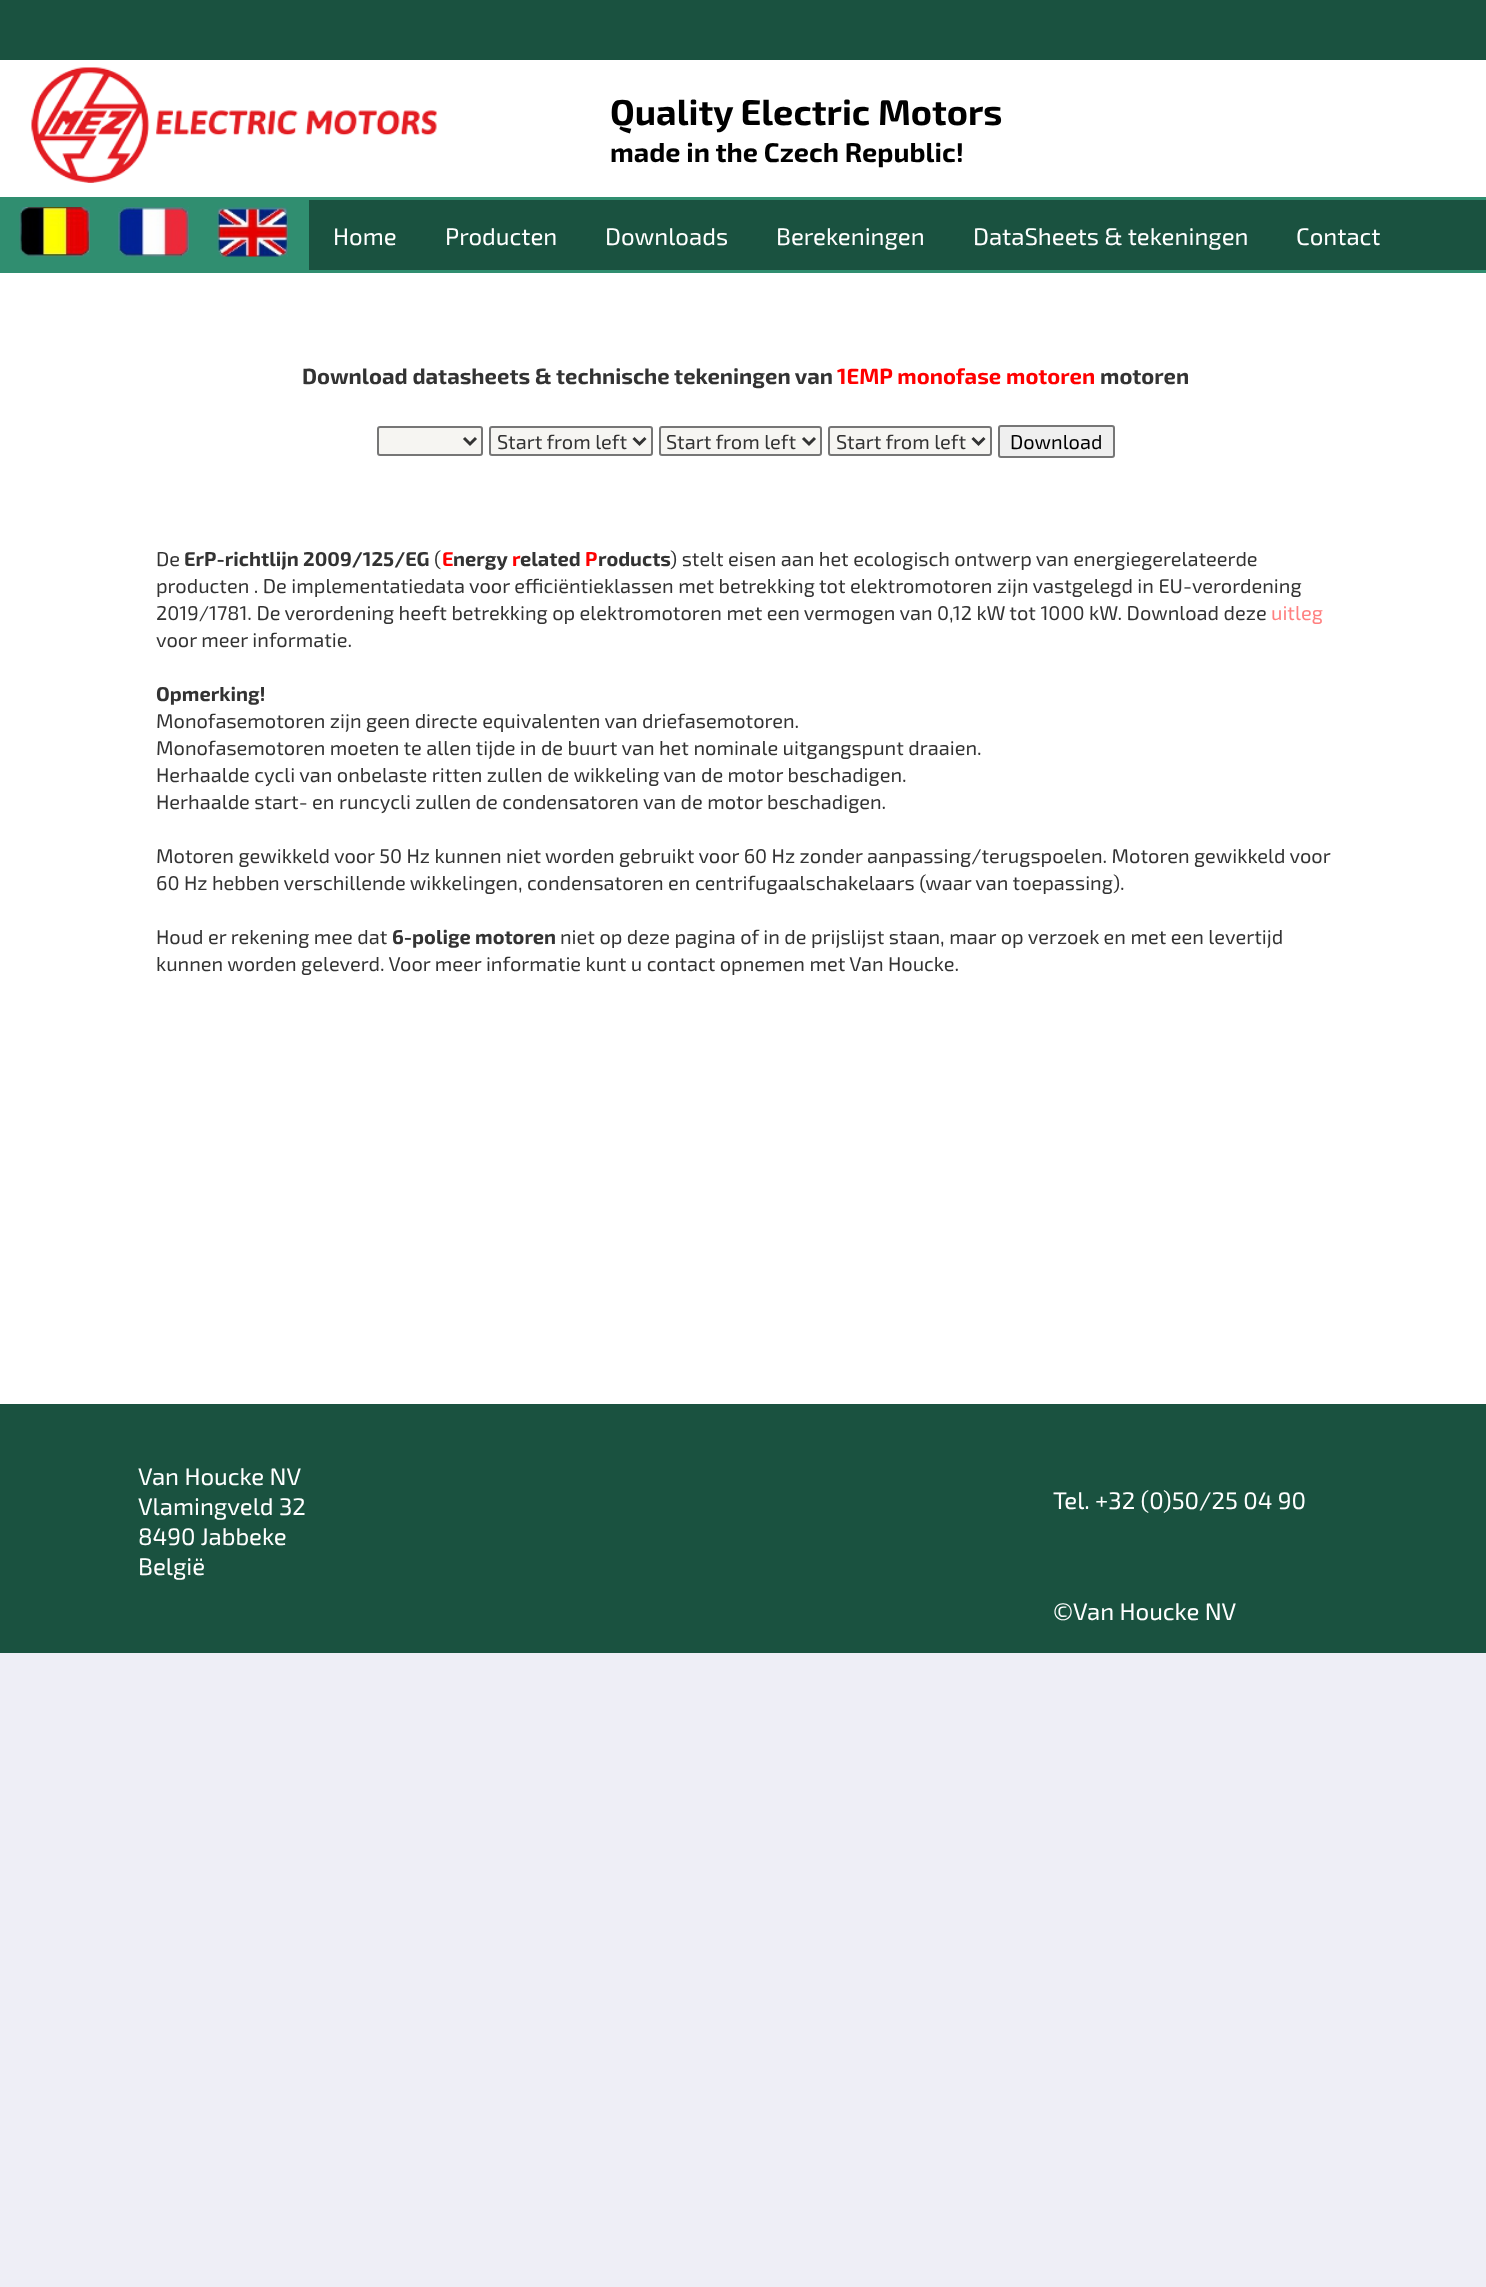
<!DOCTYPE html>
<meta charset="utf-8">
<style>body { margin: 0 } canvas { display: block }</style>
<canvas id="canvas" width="1486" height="2287"></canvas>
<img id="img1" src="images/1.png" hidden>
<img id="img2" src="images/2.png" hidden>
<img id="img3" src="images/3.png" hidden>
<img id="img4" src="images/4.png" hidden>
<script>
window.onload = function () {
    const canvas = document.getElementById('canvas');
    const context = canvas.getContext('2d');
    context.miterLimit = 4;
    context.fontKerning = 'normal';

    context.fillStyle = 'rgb(238, 238, 246)';
    context.fillRect(0, 0, 1486, 2287);
    context.fillStyle = 'rgb(255, 255, 255)';
    context.fillRect(0, 60, 1486, 1344);
    context.fillStyle = 'rgb(26, 82, 64)';
    context.fillRect(0, 0, 1486, 60);
    context.drawImage(document.getElementById('img1'), 31, 67, 406, 116);
    context.fillStyle = 'rgb(48, 142, 112)';
    context.fillRect(0, 197, 1486, 76);
    context.drawImage(document.getElementById('img2'), 19, 207, 71, 50);
    context.drawImage(document.getElementById('img3'), 118, 207, 71, 50);
    context.drawImage(document.getElementById('img4'), 217, 207, 71, 50);
    context.fillStyle = 'rgb(26, 82, 64)';
    context.fillRect(309, 200, 1177, 70);
    context.fillStyle = 'rgb(246, 245, 242)';
    context.beginPath();
    context.roundRect(378, 427, 104, 28, 2);
    context.fill();
    context.strokeStyle = 'rgb(118, 118, 118)';
    context.lineWidth = 2;
    context.stroke();
    context.beginPath();
    context.moveTo(464, 438);
    context.lineTo(470, 444);
    context.lineTo(476, 438);
    context.strokeStyle = 'rgb(51, 51, 51)';
    context.lineWidth = 3;
    context.stroke();
    context.beginPath();
    context.roundRect(490, 427, 162, 28, 2);
    context.fill();
    context.strokeStyle = 'rgb(118, 118, 118)';
    context.lineWidth = 2;
    context.stroke();
    context.beginPath();
    context.moveTo(633.5, 438);
    context.lineTo(639.5, 444);
    context.lineTo(645.5, 438);
    context.strokeStyle = 'rgb(51, 51, 51)';
    context.lineWidth = 3;
    context.stroke();
    context.beginPath();
    context.roundRect(660, 427, 161, 28, 2);
    context.fill();
    context.strokeStyle = 'rgb(118, 118, 118)';
    context.lineWidth = 2;
    context.stroke();
    context.beginPath();
    context.moveTo(803, 438);
    context.lineTo(809, 444);
    context.lineTo(815, 438);
    context.strokeStyle = 'rgb(51, 51, 51)';
    context.lineWidth = 3;
    context.stroke();
    context.beginPath();
    context.roundRect(829, 427, 162, 28, 2);
    context.fill();
    context.strokeStyle = 'rgb(118, 118, 118)';
    context.lineWidth = 2;
    context.stroke();
    context.beginPath();
    context.moveTo(972.5, 438);
    context.lineTo(978.5, 444);
    context.lineTo(984.5, 438);
    context.strokeStyle = 'rgb(51, 51, 51)';
    context.lineWidth = 3;
    context.stroke();
    context.fillStyle = 'rgb(239, 239, 239)';
    context.beginPath();
    context.roundRect(999, 426, 115, 31, 2);
    context.fill();
    context.strokeStyle = 'rgb(118, 118, 118)';
    context.lineWidth = 2;
    context.stroke();
    context.fillStyle = 'rgb(26, 82, 64)';
    context.fillRect(0, 1404, 1486, 249);
    context.font = 'bold 36px "Exo 2"';
    context.fillStyle = 'rgb(0, 0, 0)';
    context.fillText('Quality Electric Motors', 610, 125);
    context.font = 'bold 27px "Exo 2"';
    context.fillText('made in the Czech Republic!', 610, 162);
    context.font = '24px "Exo 2"';
    context.fillStyle = 'rgb(255, 255, 255)';
    context.fillText('Home', 333, 245);
    context.fillText('Producten', 445, 245);
    context.fillText('Downloads', 605, 245);
    context.fillText('Berekeningen', 776, 245);
    context.fillText('DataSheets & tekeningen', 973, 245);
    context.fillText('Contact', 1296, 245);
    context.font = 'bold 22px "Exo 2"';
    context.fillStyle = 'rgb(51, 51, 51)';
    context.fillText('Download datasheets & technische tekeningen van', 302, 384);
    context.fillStyle = 'rgb(255, 0, 0)';
    context.fillText('1EMP monofase motoren', 837, 384);
    context.fillStyle = 'rgb(51, 51, 51)';
    context.fillText('motoren', 1100, 384);
    context.font = '20px "Exo 2"';
    context.fillText('Start from left', 497, 449);
    context.fillText('Start from left', 666, 449);
    context.fillText('Start from left', 836, 449);
    context.fillStyle = 'rgb(0, 0, 0)';
    context.fillText('Download', 1010, 449);
    context.fillStyle = 'rgb(51, 51, 51)';
    context.fillText('De', 156, 566);
    context.font = 'bold 20px "Exo 2"';
    context.fillText('ErP-richtlijn 2009/125/EG', 184, 566);
    context.font = '20px "Exo 2"';
    context.fillText('(', 434, 566);
    context.font = 'bold 20px "Exo 2"';
    context.fillStyle = 'rgb(255, 0, 0)';
    context.fillText('E', 442, 566);
    context.fillStyle = 'rgb(51, 51, 51)';
    context.fillText('nergy', 453, 566);
    context.fillStyle = 'rgb(255, 0, 0)';
    context.fillText('r', 512, 566);
    context.fillStyle = 'rgb(51, 51, 51)';
    context.fillText('elated', 520, 566);
    context.fillStyle = 'rgb(255, 0, 0)';
    context.fillText('P', 585, 566);
    context.fillStyle = 'rgb(51, 51, 51)';
    context.fillText('roducts', 598, 566);
    context.font = '20px "Exo 2"';
    context.fillText(') stelt eisen aan het ecologisch ontwerp van energiegerelateerde', 670, 566);
    context.fillText('producten . De implementatiedata voor efficiëntieklassen met betrekking tot elektromotoren zijn vastgelegd in EU-verordening', 156, 593);
    context.fillText('2019/1781. De verordening heeft betrekking op elektromotoren met een vermogen van 0,12 kW tot 1000 kW. Download deze', 156, 620);
    context.fillStyle = 'rgb(255, 128, 128)';
    context.fillText('uitleg', 1271, 620);
    context.fillStyle = 'rgb(51, 51, 51)';
    context.fillText('voor meer informatie.', 156, 647);
    context.font = 'bold 20px "Exo 2"';
    context.fillText('Opmerking!', 156, 701);
    context.font = '20px "Exo 2"';
    context.fillText('Monofasemotoren zijn geen directe equivalenten van driefasemotoren.', 156, 728);
    context.fillText('Monofasemotoren moeten te allen tijde in de buurt van het nominale uitgangspunt draaien.', 156, 755);
    context.fillText('Herhaalde cycli van onbelaste ritten zullen de wikkeling van de motor beschadigen.', 156, 782);
    context.fillText('Herhaalde start- en runcycli zullen de condensatoren van de motor beschadigen.', 156, 809);
    context.fillText('Motoren gewikkeld voor 50 Hz kunnen niet worden gebruikt voor 60 Hz zonder aanpassing/terugspoelen. Motoren gewikkeld voor', 156, 863);
    context.fillText('60 Hz hebben verschillende wikkelingen, condensatoren en centrifugaalschakelaars (waar van toepassing).', 156, 890);
    context.fillText('Houd er rekening mee dat', 156, 944);
    context.font = 'bold 20px "Exo 2"';
    context.fillText('6-polige motoren', 392, 944);
    context.font = '20px "Exo 2"';
    context.fillText('niet op deze pagina of in de prijslijst staan, maar op verzoek en met een levertijd', 560, 944);
    context.fillText('kunnen worden geleverd. Voor meer informatie kunt u contact opnemen met Van Houcke.', 156, 971);
    context.font = '24px "Exo 2"';
    context.fillStyle = 'rgb(255, 255, 255)';
    context.fillText('Van Houcke NV', 138, 1485);
    context.fillText('Vlamingveld 32', 138, 1515);
    context.fillText('8490 Jabbeke', 138, 1545);
    context.fillText('België', 138, 1575);
    context.fillText('Tel. +32 (0)50/25 04 90', 1053, 1509);
    context.fillText('©Van Houcke NV', 1053, 1620);
};
</script>
